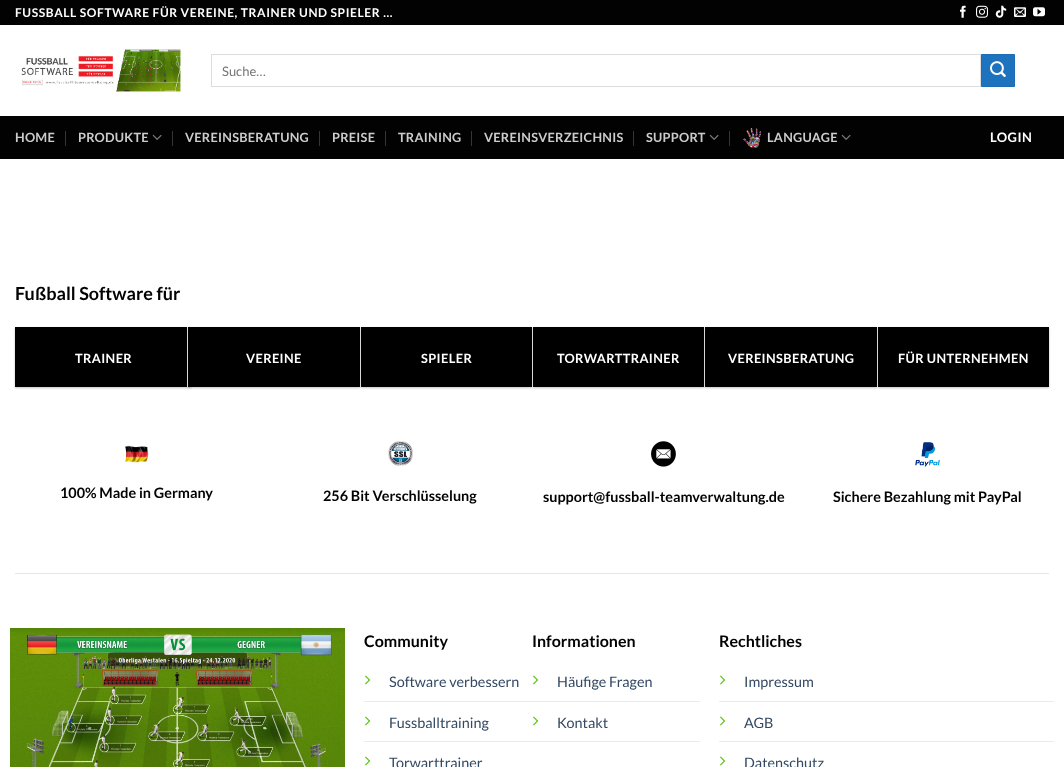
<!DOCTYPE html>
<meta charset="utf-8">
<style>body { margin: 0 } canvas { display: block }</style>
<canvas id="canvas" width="1064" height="767"></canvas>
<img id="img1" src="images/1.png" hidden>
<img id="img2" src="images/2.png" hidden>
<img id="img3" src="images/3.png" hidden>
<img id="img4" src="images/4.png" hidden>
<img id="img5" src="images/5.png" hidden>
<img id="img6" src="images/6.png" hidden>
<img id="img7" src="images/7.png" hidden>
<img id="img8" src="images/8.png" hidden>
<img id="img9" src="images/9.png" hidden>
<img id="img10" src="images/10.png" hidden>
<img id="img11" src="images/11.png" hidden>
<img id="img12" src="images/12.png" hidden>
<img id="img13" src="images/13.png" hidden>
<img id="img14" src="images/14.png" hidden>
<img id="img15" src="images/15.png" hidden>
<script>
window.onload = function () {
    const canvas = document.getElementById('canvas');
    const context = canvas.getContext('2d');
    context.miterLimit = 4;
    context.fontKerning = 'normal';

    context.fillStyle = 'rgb(255, 255, 255)';
    context.fillRect(0, 0, 1064, 767);
    context.fillStyle = 'rgb(2, 2, 2)';
    context.fillRect(0, 0, 1064, 25);
    context.drawImage(document.getElementById('img1'), 960, 5, 6, 13);
    context.drawImage(document.getElementById('img2'), 976, 5, 12, 13);
    context.drawImage(document.getElementById('img3'), 995, 5, 12, 13);
    context.drawImage(document.getElementById('img4'), 1014, 7, 12, 10);
    context.drawImage(document.getElementById('img5'), 1033, 7, 12, 10);
    context.drawImage(document.getElementById('img6'), 21, 49, 160, 43);
    context.strokeStyle = 'rgb(221, 221, 221)';
    context.strokeRect(211.5, 54.5, 769, 32);
    context.fillStyle = 'rgb(30, 115, 190)';
    context.beginPath();
    context.rect(981.5, 54.5, 33, 32);
    context.fill();
    context.strokeStyle = 'rgb(29, 109, 181)';
    context.stroke();
    context.drawImage(document.getElementById('img7'), 990, 61, 16, 16);
    context.fillStyle = 'rgb(2, 2, 2)';
    context.fillRect(0, 116, 1064, 43);
    context.fillStyle = 'rgb(53, 53, 53)';
    context.fillRect(65, 131, 1, 15);
    context.drawImage(document.getElementById('img8'), 152, 134, 10, 6);
    context.fillRect(172, 131, 1, 15);
    context.fillRect(319, 131, 1, 15);
    context.fillRect(385, 131, 1, 15);
    context.fillRect(471, 131, 1, 15);
    context.fillRect(633, 131, 1, 15);
    context.drawImage(document.getElementById('img8'), 709, 134, 10, 6);
    context.fillRect(729, 131, 1, 15);
    context.drawImage(document.getElementById('img9'), 743, 128, 19, 20);
    context.drawImage(document.getElementById('img8'), 841, 134, 10, 6);
    context.fillStyle = 'rgba(0, 0, 0, 0.24)';
    context.filter = 'blur(1px)';
    context.beginPath();
    context.rect(15, 328, 176, 60);
    context.fill();
    context.filter = 'none';
    context.fillStyle = 'rgb(0, 0, 0)';
    context.fillRect(15, 327, 172, 60);
    context.fillStyle = 'rgb(236, 236, 236)';
    context.fillRect(187, 327, 1, 60);
    context.fillStyle = 'rgba(0, 0, 0, 0.24)';
    context.filter = 'blur(1px)';
    context.beginPath();
    context.rect(188, 328, 172, 60);
    context.fill();
    context.filter = 'none';
    context.fillStyle = 'rgb(0, 0, 0)';
    context.fillRect(188, 327, 172, 60);
    context.fillStyle = 'rgb(236, 236, 236)';
    context.fillRect(360, 327, 1, 2);
    context.fillStyle = 'rgba(0, 0, 0, 0.24)';
    context.filter = 'blur(1px)';
    context.beginPath();
    context.rect(361, 328, 171, 60);
    context.fill();
    context.filter = 'none';
    context.fillStyle = 'rgb(0, 0, 0)';
    context.fillRect(361, 327, 171, 60);
    context.fillStyle = 'rgb(236, 236, 236)';
    context.fillRect(532, 327, 1, 2);
    context.fillStyle = 'rgba(0, 0, 0, 0.24)';
    context.filter = 'blur(1px)';
    context.beginPath();
    context.rect(533, 328, 171, 60);
    context.fill();
    context.filter = 'none';
    context.fillStyle = 'rgb(0, 0, 0)';
    context.fillRect(533, 327, 171, 60);
    context.fillStyle = 'rgb(236, 236, 236)';
    context.fillRect(704, 327, 1, 2);
    context.fillStyle = 'rgba(0, 0, 0, 0.24)';
    context.filter = 'blur(1px)';
    context.beginPath();
    context.rect(705, 328, 172, 60);
    context.fill();
    context.filter = 'none';
    context.fillStyle = 'rgb(0, 0, 0)';
    context.fillRect(705, 327, 172, 60);
    context.fillStyle = 'rgb(236, 236, 236)';
    context.fillRect(877, 327, 1, 2);
    context.fillStyle = 'rgba(0, 0, 0, 0.24)';
    context.filter = 'blur(1px)';
    context.beginPath();
    context.rect(878, 328, 171, 60);
    context.fill();
    context.filter = 'none';
    context.fillStyle = 'rgb(0, 0, 0)';
    context.fillRect(878, 327, 171, 60);
    context.drawImage(document.getElementById('img10'), 124, 445, 25, 18);
    context.drawImage(document.getElementById('img11'), 388, 441, 25, 25);
    context.drawImage(document.getElementById('img12'), 651, 441, 25, 26);
    context.drawImage(document.getElementById('img13'), 915, 442, 25, 25);
    context.fillStyle = 'rgb(230, 230, 230)';
    context.fillRect(15, 573, 1034, 1);
    context.drawImage(document.getElementById('img14'), 10, 628, 335, 139);
    context.fillStyle = 'rgb(236, 236, 236)';
    context.fillRect(364, 701, 336, 1);
    context.drawImage(document.getElementById('img15'), 365, 675, 6, 10);
    context.fillRect(364, 741, 336, 1);
    context.drawImage(document.getElementById('img15'), 365, 716, 6, 10);
    context.drawImage(document.getElementById('img15'), 365, 756, 6, 10);
    context.drawImage(document.getElementById('img15'), 533, 675, 6, 10);
    context.drawImage(document.getElementById('img15'), 533, 716, 6, 10);
    context.fillRect(719, 701, 335, 1);
    context.drawImage(document.getElementById('img15'), 720, 675, 6, 10);
    context.fillRect(719, 741, 335, 1);
    context.drawImage(document.getElementById('img15'), 720, 716, 6, 10);
    context.drawImage(document.getElementById('img15'), 720, 756, 6, 10);
    context.letterSpacing = '0.6px';
    context.font = 'bold 12px Lato';
    context.fillStyle = 'rgb(255, 255, 255)';
    context.fillText('FUSSBALL SOFTWARE FÜR VEREINE, TRAINER UND SPIELER ...', 15, 17);
    context.letterSpacing = '0px';
    context.font = '13px Lato';
    context.fillStyle = 'rgb(117, 117, 117)';
    context.fillText('Suche…', 222, 76);
    context.letterSpacing = '0.25px';
    context.font = 'bold 12.75px Lato';
    context.fillStyle = 'rgb(204, 204, 204)';
    context.fillText('HOME', 15, 142);
    context.fillText('PRODUKTE', 78, 142);
    context.fillText('VEREINSBERATUNG', 185, 142);
    context.fillText('PREISE', 332, 142);
    context.fillText('TRAINING', 398, 142);
    context.fillText('VEREINSVERZEICHNIS', 484, 142);
    context.fillText('SUPPORT', 646, 142);
    context.fillText('LANGUAGE', 767, 142);
    context.letterSpacing = '0.5px';
    context.font = 'bold 13px Lato';
    context.fillStyle = 'rgb(255, 255, 255)';
    context.fillText('LOGIN', 990, 142);
    context.letterSpacing = '0px';
    context.font = 'bold 18px Lato';
    context.fillStyle = 'rgb(2, 2, 2)';
    context.fillText('Fußball Software für', 15, 300);
    context.letterSpacing = '0.4px';
    context.font = 'bold 12.75px Lato';
    context.fillStyle = 'rgb(255, 255, 255)';
    context.fillText('TRAINER', 75, 363);
    context.fillText('VEREINE', 246, 363);
    context.fillText('SPIELER', 421, 363);
    context.fillText('TORWARTTRAINER', 557, 363);
    context.fillText('VEREINSBERATUNG', 728, 363);
    context.fillText('FÜR UNTERNEHMEN', 898, 363);
    context.letterSpacing = '0px';
    context.font = 'bold 14.4px Lato';
    context.fillStyle = 'rgb(2, 2, 2)';
    context.fillText('100% Made in Germany', 60, 498);
    context.fillText('256 Bit Verschlüsselung', 323, 501);
    context.fillText('support@fussball-teamverwaltung.de', 543, 502);
    context.fillText('Sichere Bezahlung mit PayPal', 833, 502);
    context.font = 'bold 16px Lato';
    context.fillText('Community', 364, 647);
    context.font = '14.4px Lato';
    context.fillStyle = 'rgb(51, 72, 98)';
    context.fillText('Software verbessern', 389, 687);
    context.fillText('Fussballtraining', 389, 728);
    context.fillText('Torwarttrainer', 389, 768);
    context.font = 'bold 16px Lato';
    context.fillStyle = 'rgb(2, 2, 2)';
    context.fillText('Informationen', 532, 647);
    context.font = '14.4px Lato';
    context.fillStyle = 'rgb(51, 72, 98)';
    context.fillText('Häufige Fragen', 557, 687);
    context.fillText('Kontakt', 557, 728);
    context.font = 'bold 16px Lato';
    context.fillStyle = 'rgb(2, 2, 2)';
    context.fillText('Rechtliches', 719, 647);
    context.font = '14.4px Lato';
    context.fillStyle = 'rgb(51, 72, 98)';
    context.fillText('Impressum', 744, 687);
    context.fillText('AGB', 744, 728);
    context.fillText('Datenschutz', 744, 768);
};
</script>
